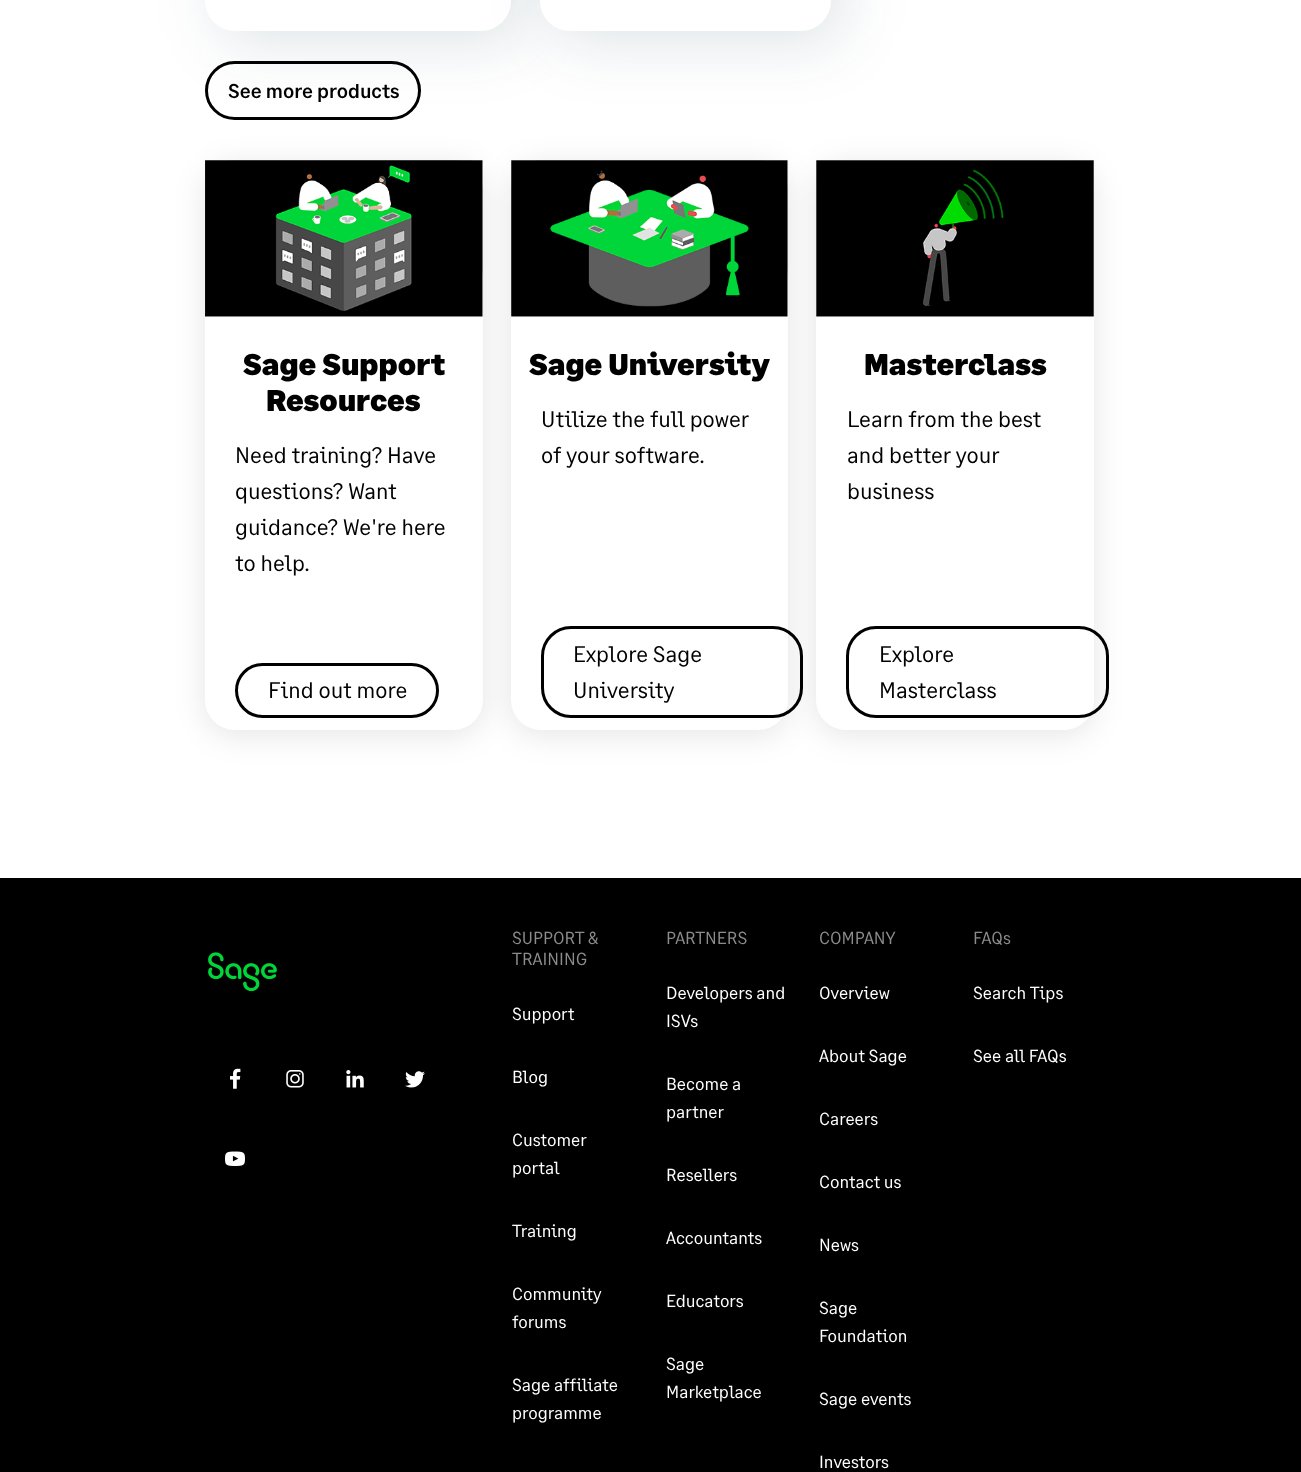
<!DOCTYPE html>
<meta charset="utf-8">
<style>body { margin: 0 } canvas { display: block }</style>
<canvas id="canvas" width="1301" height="1472"></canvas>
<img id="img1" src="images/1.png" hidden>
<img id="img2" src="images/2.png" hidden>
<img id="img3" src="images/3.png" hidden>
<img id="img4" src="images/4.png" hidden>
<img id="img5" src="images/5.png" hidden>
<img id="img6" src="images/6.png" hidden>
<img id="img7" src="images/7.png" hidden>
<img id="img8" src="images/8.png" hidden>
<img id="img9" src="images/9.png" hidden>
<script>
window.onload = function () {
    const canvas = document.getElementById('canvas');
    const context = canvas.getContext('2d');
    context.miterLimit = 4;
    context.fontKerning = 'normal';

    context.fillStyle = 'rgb(255, 255, 255)';
    context.fillRect(0, 0, 1301, 1472);
    context.beginPath();
    context.roundRect(206.5, 62.5, 213, 56, 28);
    context.strokeStyle = 'rgb(0, 0, 0)';
    context.lineWidth = 3;
    context.stroke();
    context.fillStyle = 'rgba(0, 41, 64, 0.12)';
    context.filter = 'blur(31px)';
    context.beginPath();
    context.roundRect(218, -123, 306, 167, 30);
    context.fill();
    context.filter = 'none';
    context.fillStyle = 'rgb(255, 255, 255)';
    context.beginPath();
    context.roundRect(205, -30, 306, 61, 30);
    context.fill();
    context.fillStyle = 'rgba(0, 41, 64, 0.12)';
    context.filter = 'blur(31px)';
    context.beginPath();
    context.roundRect(553, -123, 291, 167, 30);
    context.fill();
    context.filter = 'none';
    context.fillStyle = 'rgb(255, 255, 255)';
    context.beginPath();
    context.roundRect(540, -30, 291, 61, 30);
    context.fill();
    context.fillStyle = 'rgba(0, 0, 0, 0.1)';
    context.filter = 'blur(15.5px)';
    context.beginPath();
    context.roundRect(205, 165, 278, 570, 30);
    context.fill();
    context.filter = 'none';
    context.fillStyle = 'rgb(255, 255, 255)';
    context.beginPath();
    context.roundRect(205, 160, 278, 570, 30);
    context.fill();
    context.fillStyle = 'rgb(216, 216, 216)';
    context.beginPath();
    context.roundRect(205, 160, 278, 156, [30, 30, 50, 0]);
    context.fill();
    context.drawImage(document.getElementById('img1'), 205, 160, 278, 157);
    context.beginPath();
    context.roundRect(236.5, 664.5, 201, 52, 26);
    context.stroke();
    context.fillStyle = 'rgba(0, 0, 0, 0.1)';
    context.filter = 'blur(15.5px)';
    context.beginPath();
    context.roundRect(511, 165, 277, 570, 30);
    context.fill();
    context.filter = 'none';
    context.fillStyle = 'rgb(255, 255, 255)';
    context.beginPath();
    context.roundRect(511, 160, 277, 570, 30);
    context.fill();
    context.fillStyle = 'rgb(216, 216, 216)';
    context.beginPath();
    context.roundRect(511, 160, 277, 156, [30, 30, 50, 0]);
    context.fill();
    context.drawImage(document.getElementById('img2'), 511, 160, 277, 157);
    context.beginPath();
    context.roundRect(542.5, 627.5, 259, 89, 28.5);
    context.stroke();
    context.fillStyle = 'rgba(0, 0, 0, 0.1)';
    context.filter = 'blur(15.5px)';
    context.beginPath();
    context.roundRect(816, 165, 278, 570, 30);
    context.fill();
    context.filter = 'none';
    context.fillStyle = 'rgb(255, 255, 255)';
    context.beginPath();
    context.roundRect(816, 160, 278, 570, 30);
    context.fill();
    context.drawImage(document.getElementById('img3'), 816, 160, 278, 157);
    context.beginPath();
    context.roundRect(847.5, 627.5, 260, 89, 28.5);
    context.stroke();
    context.fillStyle = 'rgb(0, 0, 0)';
    context.fillRect(0, 878, 1301, 594);
    context.drawImage(document.getElementById('img4'), 208, 952, 69, 40);
    context.drawImage(document.getElementById('img5'), 230, 1068, 11, 21);
    context.drawImage(document.getElementById('img6'), 286, 1070, 18, 18);
    context.drawImage(document.getElementById('img7'), 346, 1070, 18, 18);
    context.drawImage(document.getElementById('img8'), 405, 1071, 20, 17);
    context.drawImage(document.getElementById('img9'), 225, 1151, 20, 15);
    context.font = '500 20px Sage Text';
    context.fillText('See more products', 228, 98);
    context.font = '900 30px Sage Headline';
    context.fillText('Sage Support', 243, 375);
    context.fillText('Resources', 266, 411);
    context.font = '22.5px Sage Text';
    context.fillText('Need training? Have', 235, 463);
    context.fillText('questions? Want', 235, 499);
    context.fillText('guidance? We\'re here', 235, 535);
    context.fillText('to help.', 235, 571);
    context.fillText('Find out more', 268, 698);
    context.font = '900 30px Sage Headline';
    context.fillText('Sage University', 529, 375);
    context.font = '22.5px Sage Text';
    context.fillText('Utilize the full power', 541, 427);
    context.fillText('of your software.', 541, 463);
    context.fillText('Explore Sage', 573, 662);
    context.fillText('University', 573, 698);
    context.font = '900 30px Sage Headline';
    context.fillText('Masterclass', 864, 375);
    context.font = '22.5px Sage Text';
    context.fillText('Learn from the best', 847, 427);
    context.fillText('and better your', 847, 463);
    context.fillText('business', 847, 499);
    context.fillText('Explore', 879, 662);
    context.fillText('Masterclass', 879, 698);
    context.font = '17.5px Sage Text';
    context.fillStyle = 'rgb(140, 140, 140)';
    context.fillText('SUPPORT &', 512, 944);
    context.fillText('TRAINING', 512, 965);
    context.fillStyle = 'rgb(255, 255, 255)';
    context.fillText('Support', 512, 1020);
    context.fillText('Blog', 512, 1083);
    context.fillText('Customer', 512, 1146);
    context.fillText('portal', 512, 1174);
    context.fillText('Training', 512, 1237);
    context.fillText('Community', 512, 1300);
    context.fillText('forums', 512, 1328);
    context.fillText('Sage affiliate', 512, 1391);
    context.fillText('programme', 512, 1419);
    context.fillStyle = 'rgb(140, 140, 140)';
    context.fillText('PARTNERS', 666, 944);
    context.fillStyle = 'rgb(255, 255, 255)';
    context.fillText('Developers and', 666, 999);
    context.fillText('ISVs', 666, 1027);
    context.fillText('Become a', 666, 1090);
    context.fillText('partner', 666, 1118);
    context.fillText('Resellers', 666, 1181);
    context.fillText('Accountants', 666, 1244);
    context.fillText('Educators', 666, 1307);
    context.fillText('Sage', 666, 1370);
    context.fillText('Marketplace', 666, 1398);
    context.fillStyle = 'rgb(140, 140, 140)';
    context.fillText('COMPANY', 819, 944);
    context.fillStyle = 'rgb(255, 255, 255)';
    context.fillText('Overview', 819, 999);
    context.fillText('About Sage', 819, 1062);
    context.fillText('Careers', 819, 1125);
    context.fillText('Contact us', 819, 1188);
    context.fillText('News', 819, 1251);
    context.fillText('Sage', 819, 1314);
    context.fillText('Foundation', 819, 1342);
    context.fillText('Sage events', 819, 1405);
    context.fillText('Investors', 819, 1468);
    context.fillStyle = 'rgb(140, 140, 140)';
    context.fillText('FAQs', 973, 944);
    context.fillStyle = 'rgb(255, 255, 255)';
    context.fillText('Search Tips', 973, 999);
    context.fillText('See all FAQs', 973, 1062);
};
</script>
